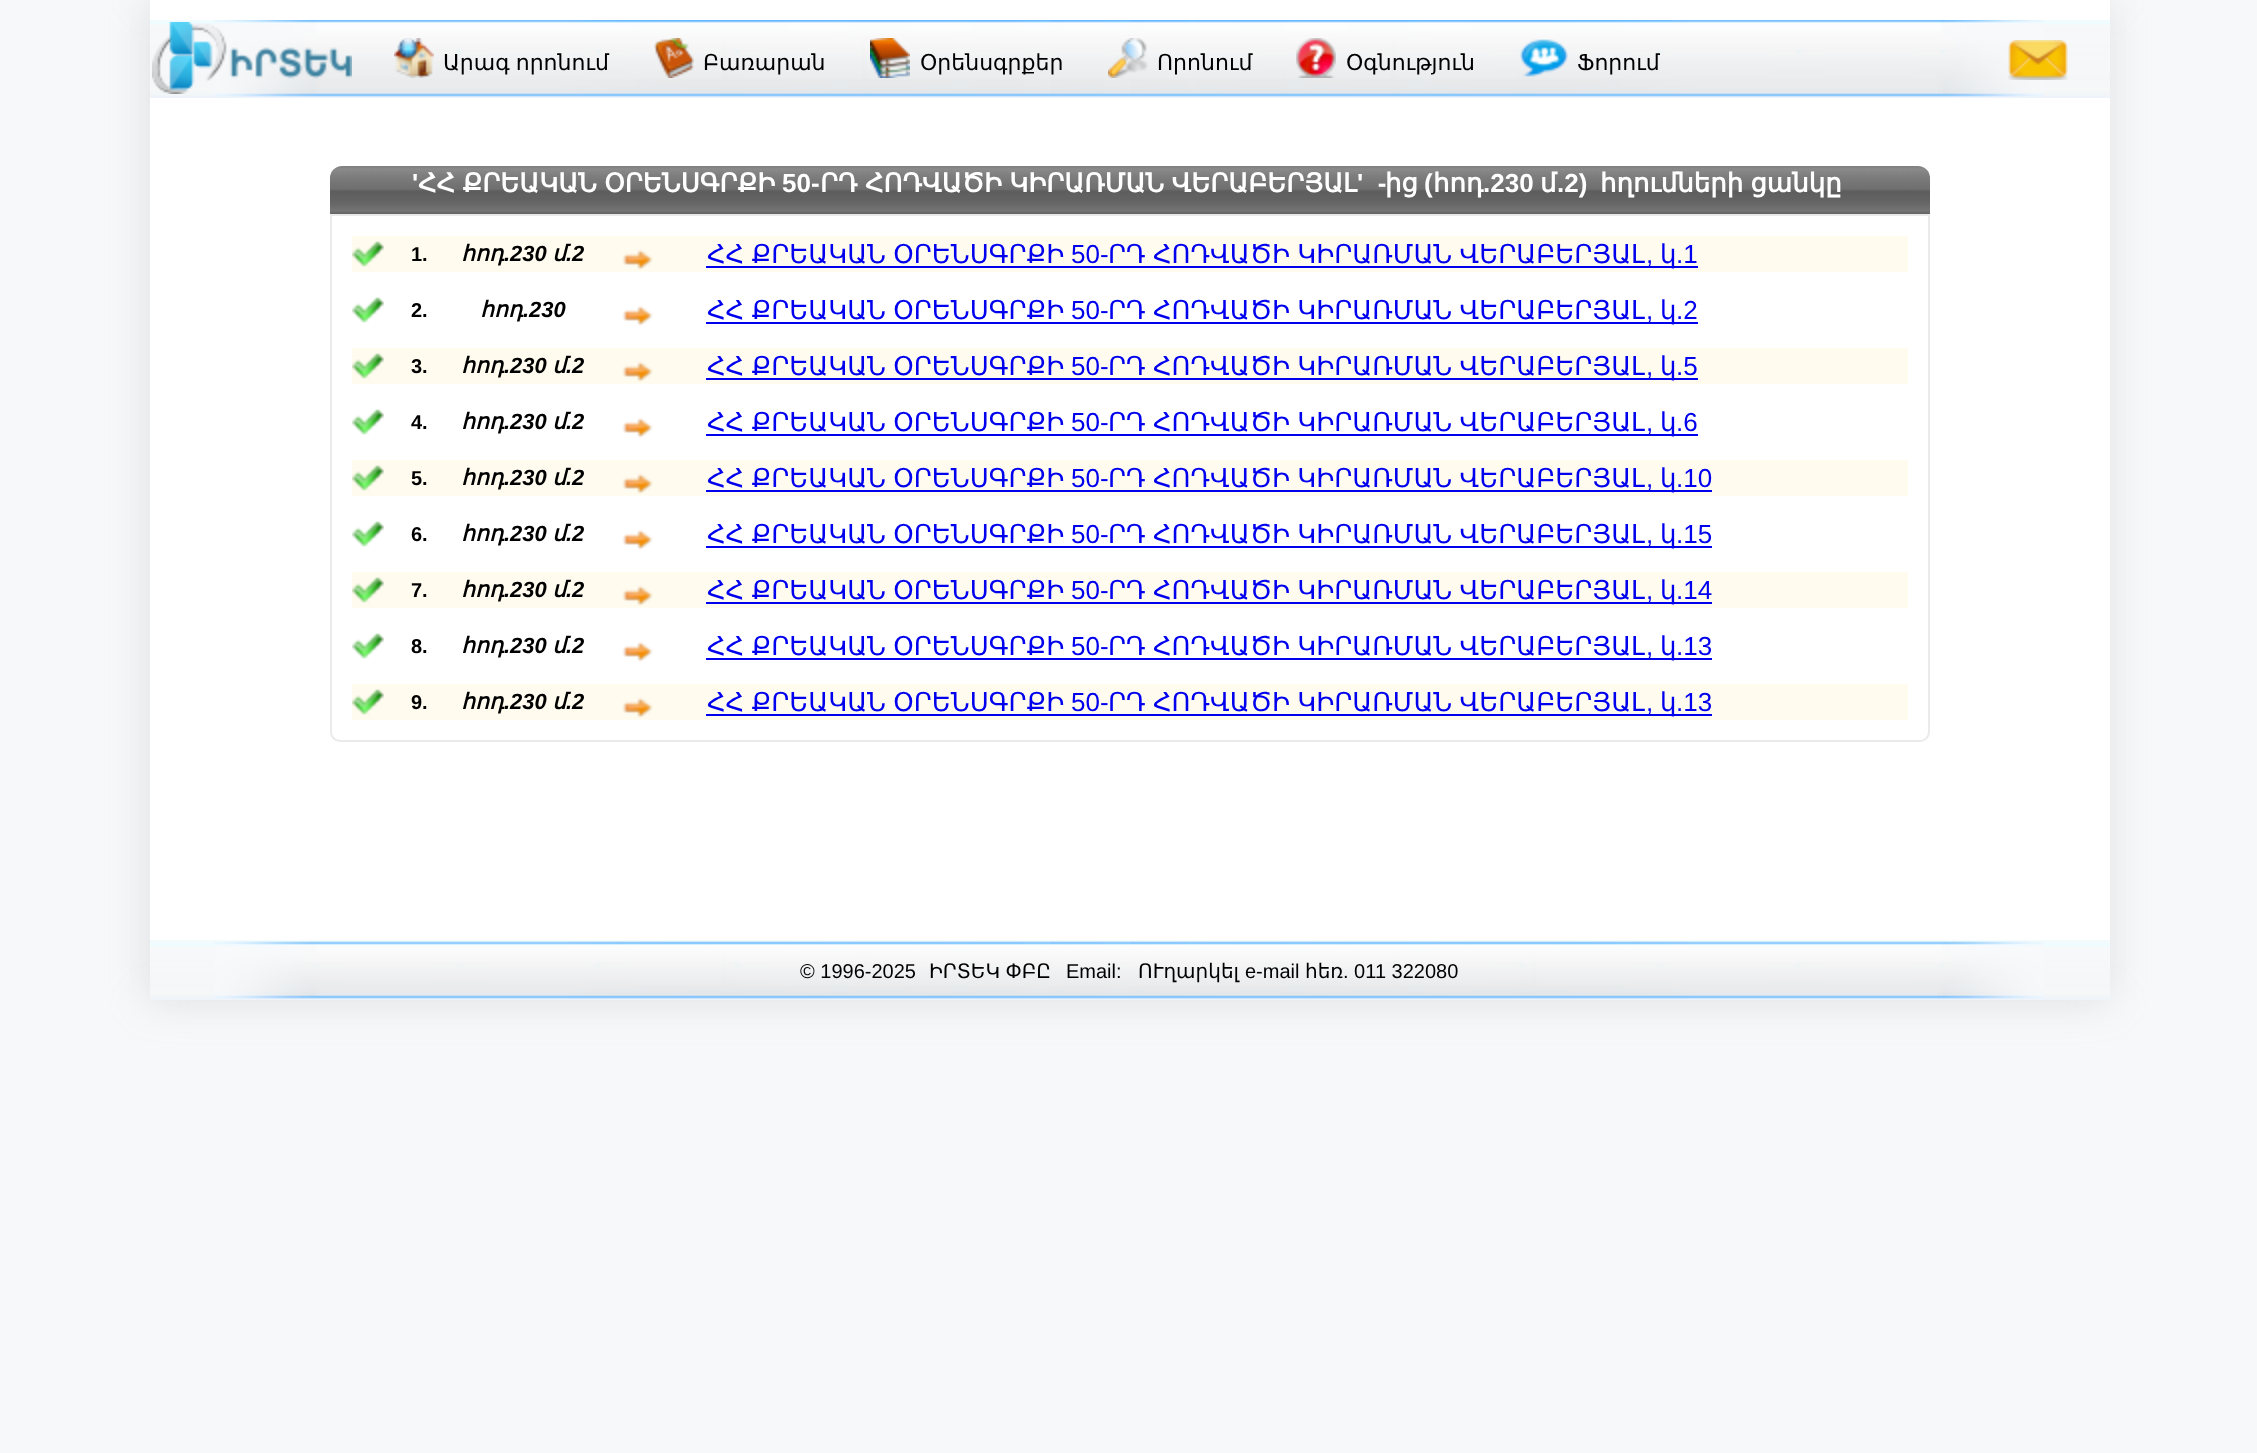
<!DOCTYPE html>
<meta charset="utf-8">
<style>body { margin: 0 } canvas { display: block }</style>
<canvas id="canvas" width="2257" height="1453"></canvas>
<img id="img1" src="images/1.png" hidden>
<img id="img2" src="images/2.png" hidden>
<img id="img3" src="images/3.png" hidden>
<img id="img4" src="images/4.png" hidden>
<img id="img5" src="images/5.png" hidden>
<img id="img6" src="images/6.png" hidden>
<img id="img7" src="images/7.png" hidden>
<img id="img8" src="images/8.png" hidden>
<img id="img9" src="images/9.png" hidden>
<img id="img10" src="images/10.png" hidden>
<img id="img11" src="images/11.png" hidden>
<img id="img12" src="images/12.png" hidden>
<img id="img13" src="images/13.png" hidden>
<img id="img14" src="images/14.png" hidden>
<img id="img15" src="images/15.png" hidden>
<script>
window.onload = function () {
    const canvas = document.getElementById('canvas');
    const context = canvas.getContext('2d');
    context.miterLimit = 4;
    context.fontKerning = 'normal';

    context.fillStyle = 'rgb(246, 248, 250)';
    context.fillRect(0, 0, 2257, 1453);
    context.fillStyle = 'rgba(170, 170, 170, 0.32)';
    context.filter = 'blur(20px)';
    context.beginPath();
    context.rect(148, 0, 1960, 1000);
    context.fill();
    context.filter = 'none';
    context.fillStyle = 'rgb(255, 255, 255)';
    context.fillRect(150, 0, 1960, 940);
    context.drawImage(document.getElementById('img1'), 150, 20, 1960, 78);
    context.drawImage(document.getElementById('img2'), 152, 22, 200, 72);
    context.drawImage(document.getElementById('img3'), 394, 38, 40, 40);
    context.drawImage(document.getElementById('img4'), 654, 38, 40, 40);
    context.drawImage(document.getElementById('img5'), 870, 38, 40, 40);
    context.drawImage(document.getElementById('img6'), 1108, 38, 40, 40);
    context.drawImage(document.getElementById('img7'), 1296, 38, 40, 40);
    context.drawImage(document.getElementById('img8'), 1520, 39, 48, 38);
    context.drawImage(document.getElementById('img9'), 2008, 40, 60, 40);
    context.drawImage(document.getElementById('img10'), 330, 166, 1600, 48);
    context.beginPath();
    context.roundRect(331, 215, 1598, 526, [0, 0, 9, 9]);
    context.strokeStyle = 'rgb(234, 234, 234)';
    context.lineWidth = 2;
    context.stroke();
    context.fillStyle = 'rgb(255, 251, 239)';
    context.fillRect(352, 236, 1556, 36);
    context.drawImage(document.getElementById('img11'), 352, 241, 32, 26);
    context.drawImage(document.getElementById('img12'), 622, 249, 31, 21);
    context.fillStyle = 'rgb(0, 0, 238)';
    context.fillRect(706, 266, 992, 2);
    context.drawImage(document.getElementById('img13'), 352, 297, 32, 26);
    context.drawImage(document.getElementById('img14'), 622, 305, 31, 21);
    context.fillRect(706, 322, 992, 2);
    context.fillStyle = 'rgb(255, 251, 239)';
    context.fillRect(352, 348, 1556, 36);
    context.drawImage(document.getElementById('img11'), 352, 353, 32, 26);
    context.drawImage(document.getElementById('img12'), 622, 361, 31, 21);
    context.fillStyle = 'rgb(0, 0, 238)';
    context.fillRect(706, 378, 992, 2);
    context.drawImage(document.getElementById('img13'), 352, 409, 32, 26);
    context.drawImage(document.getElementById('img14'), 622, 417, 31, 21);
    context.fillRect(706, 434, 992, 2);
    context.fillStyle = 'rgb(255, 251, 239)';
    context.fillRect(352, 460, 1556, 36);
    context.drawImage(document.getElementById('img11'), 352, 465, 32, 26);
    context.drawImage(document.getElementById('img12'), 622, 473, 31, 21);
    context.fillStyle = 'rgb(0, 0, 238)';
    context.fillRect(706, 490, 1006, 2);
    context.drawImage(document.getElementById('img13'), 352, 521, 32, 26);
    context.drawImage(document.getElementById('img14'), 622, 529, 31, 21);
    context.fillRect(706, 546, 1006, 2);
    context.fillStyle = 'rgb(255, 251, 239)';
    context.fillRect(352, 572, 1556, 36);
    context.drawImage(document.getElementById('img11'), 352, 577, 32, 26);
    context.drawImage(document.getElementById('img12'), 622, 585, 31, 21);
    context.fillStyle = 'rgb(0, 0, 238)';
    context.fillRect(706, 602, 1006, 2);
    context.drawImage(document.getElementById('img13'), 352, 633, 32, 26);
    context.drawImage(document.getElementById('img14'), 622, 641, 31, 21);
    context.fillRect(706, 658, 1006, 2);
    context.fillStyle = 'rgb(255, 251, 239)';
    context.fillRect(352, 684, 1556, 36);
    context.drawImage(document.getElementById('img11'), 352, 689, 32, 26);
    context.drawImage(document.getElementById('img12'), 622, 697, 31, 21);
    context.fillStyle = 'rgb(0, 0, 238)';
    context.fillRect(706, 714, 1006, 2);
    context.drawImage(document.getElementById('img15'), 150, 940, 1960, 60);
    context.wordSpacing = '-1px';
    context.font = '22px DejaVu Sans';
    context.fillStyle = 'rgb(0, 0, 0)';
    context.fillText('Արագ որոնում', 443, 70);
    context.wordSpacing = '0px';
    context.fillText('Բառարան', 703, 70);
    context.fillText('Օրենսգրքեր', 920, 70);
    context.fillText('Որոնում', 1157, 70);
    context.fillText('Օգնություն', 1346, 70);
    context.fillText('Ֆորում', 1577, 70);
    context.font = 'bold 26px Liberation Sans';
    context.fillStyle = 'rgb(255, 255, 255)';
    context.fillText('\'', 412, 192);
    context.wordSpacing = '-1px';
    context.font = 'bold 26px DejaVu Sans';
    context.fillText('ՀՀ ՔՐԵԱԿԱՆ ՕՐԵՆՍԳՐՔԻ', 418, 192);
    context.wordSpacing = '0px';
    context.font = 'bold 26px Liberation Sans';
    context.fillText('50-', 782, 192);
    context.wordSpacing = '-1px';
    context.font = 'bold 26px DejaVu Sans';
    context.fillText('ՐԴ ՀՈԴՎԱԾԻ ԿԻՐԱՌՄԱՆ ՎԵՐԱԲԵՐՅԱԼ', 820, 192);
    context.wordSpacing = '0px';
    context.font = 'bold 26px Liberation Sans';
    context.fillText('\'  -', 1357, 192);
    context.font = 'bold 26px DejaVu Sans';
    context.fillText('ից', 1385, 192);
    context.font = 'bold 26px Liberation Sans';
    context.fillText('(', 1424, 192);
    context.font = 'bold 26px DejaVu Sans';
    context.fillText('հոդ', 1433, 192);
    context.font = 'bold 26px Liberation Sans';
    context.fillText('.230', 1483, 192);
    context.font = 'bold 26px DejaVu Sans';
    context.fillText('մ', 1540, 192);
    context.font = 'bold 26px Liberation Sans';
    context.fillText('.2)', 1557, 192);
    context.wordSpacing = '-1px';
    context.font = 'bold 26px DejaVu Sans';
    context.fillText('հղումների ցանկը', 1600, 192);
    context.wordSpacing = '0px';
    context.font = 'bold 20px Liberation Sans';
    context.fillStyle = 'rgb(0, 0, 0)';
    context.fillText('1.', 411, 261);
    context.font = 'italic bold 22px DejaVu Sans';
    context.fillText('հոդ', 461, 261);
    context.font = 'italic bold 22px Liberation Sans';
    context.fillText('.230', 504, 261);
    context.font = 'italic bold 22px DejaVu Sans';
    context.fillText('մ', 552, 261);
    context.font = 'italic bold 22px Liberation Sans';
    context.fillText('.2', 566, 261);
    context.wordSpacing = '-1px';
    context.font = '26px DejaVu Sans';
    context.fillStyle = 'rgb(0, 0, 238)';
    context.fillText('ՀՀ ՔՐԵԱԿԱՆ ՕՐԵՆՍԳՐՔԻ', 707, 263);
    context.wordSpacing = '0px';
    context.font = '26px Liberation Sans';
    context.fillText('50-', 1071, 263);
    context.wordSpacing = '-1px';
    context.font = '26px DejaVu Sans';
    context.fillText('ՐԴ ՀՈԴՎԱԾԻ ԿԻՐԱՌՄԱՆ ՎԵՐԱԲԵՐՅԱԼ', 1108, 263);
    context.wordSpacing = '0px';
    context.font = '26px Liberation Sans';
    context.fillText(',', 1646, 263);
    context.font = '26px DejaVu Sans';
    context.fillText('կ', 1660, 263);
    context.font = '26px Liberation Sans';
    context.fillText('.1', 1676, 263);
    context.font = 'bold 20px Liberation Sans';
    context.fillStyle = 'rgb(0, 0, 0)';
    context.fillText('2.', 411, 317);
    context.font = 'italic bold 22px DejaVu Sans';
    context.fillText('հոդ', 480, 317);
    context.font = 'italic bold 22px Liberation Sans';
    context.fillText('.230', 523, 317);
    context.wordSpacing = '-1px';
    context.font = '26px DejaVu Sans';
    context.fillStyle = 'rgb(0, 0, 238)';
    context.fillText('ՀՀ ՔՐԵԱԿԱՆ ՕՐԵՆՍԳՐՔԻ', 707, 319);
    context.wordSpacing = '0px';
    context.font = '26px Liberation Sans';
    context.fillText('50-', 1071, 319);
    context.wordSpacing = '-1px';
    context.font = '26px DejaVu Sans';
    context.fillText('ՐԴ ՀՈԴՎԱԾԻ ԿԻՐԱՌՄԱՆ ՎԵՐԱԲԵՐՅԱԼ', 1108, 319);
    context.wordSpacing = '0px';
    context.font = '26px Liberation Sans';
    context.fillText(',', 1646, 319);
    context.font = '26px DejaVu Sans';
    context.fillText('կ', 1660, 319);
    context.font = '26px Liberation Sans';
    context.fillText('.2', 1676, 319);
    context.font = 'bold 20px Liberation Sans';
    context.fillStyle = 'rgb(0, 0, 0)';
    context.fillText('3.', 411, 373);
    context.font = 'italic bold 22px DejaVu Sans';
    context.fillText('հոդ', 461, 373);
    context.font = 'italic bold 22px Liberation Sans';
    context.fillText('.230', 504, 373);
    context.font = 'italic bold 22px DejaVu Sans';
    context.fillText('մ', 552, 373);
    context.font = 'italic bold 22px Liberation Sans';
    context.fillText('.2', 566, 373);
    context.wordSpacing = '-1px';
    context.font = '26px DejaVu Sans';
    context.fillStyle = 'rgb(0, 0, 238)';
    context.fillText('ՀՀ ՔՐԵԱԿԱՆ ՕՐԵՆՍԳՐՔԻ', 707, 375);
    context.wordSpacing = '0px';
    context.font = '26px Liberation Sans';
    context.fillText('50-', 1071, 375);
    context.wordSpacing = '-1px';
    context.font = '26px DejaVu Sans';
    context.fillText('ՐԴ ՀՈԴՎԱԾԻ ԿԻՐԱՌՄԱՆ ՎԵՐԱԲԵՐՅԱԼ', 1108, 375);
    context.wordSpacing = '0px';
    context.font = '26px Liberation Sans';
    context.fillText(',', 1646, 375);
    context.font = '26px DejaVu Sans';
    context.fillText('կ', 1660, 375);
    context.font = '26px Liberation Sans';
    context.fillText('.5', 1676, 375);
    context.font = 'bold 20px Liberation Sans';
    context.fillStyle = 'rgb(0, 0, 0)';
    context.fillText('4.', 411, 429);
    context.font = 'italic bold 22px DejaVu Sans';
    context.fillText('հոդ', 461, 429);
    context.font = 'italic bold 22px Liberation Sans';
    context.fillText('.230', 504, 429);
    context.font = 'italic bold 22px DejaVu Sans';
    context.fillText('մ', 552, 429);
    context.font = 'italic bold 22px Liberation Sans';
    context.fillText('.2', 566, 429);
    context.wordSpacing = '-1px';
    context.font = '26px DejaVu Sans';
    context.fillStyle = 'rgb(0, 0, 238)';
    context.fillText('ՀՀ ՔՐԵԱԿԱՆ ՕՐԵՆՍԳՐՔԻ', 707, 431);
    context.wordSpacing = '0px';
    context.font = '26px Liberation Sans';
    context.fillText('50-', 1071, 431);
    context.wordSpacing = '-1px';
    context.font = '26px DejaVu Sans';
    context.fillText('ՐԴ ՀՈԴՎԱԾԻ ԿԻՐԱՌՄԱՆ ՎԵՐԱԲԵՐՅԱԼ', 1108, 431);
    context.wordSpacing = '0px';
    context.font = '26px Liberation Sans';
    context.fillText(',', 1646, 431);
    context.font = '26px DejaVu Sans';
    context.fillText('կ', 1660, 431);
    context.font = '26px Liberation Sans';
    context.fillText('.6', 1676, 431);
    context.font = 'bold 20px Liberation Sans';
    context.fillStyle = 'rgb(0, 0, 0)';
    context.fillText('5.', 411, 485);
    context.font = 'italic bold 22px DejaVu Sans';
    context.fillText('հոդ', 461, 485);
    context.font = 'italic bold 22px Liberation Sans';
    context.fillText('.230', 504, 485);
    context.font = 'italic bold 22px DejaVu Sans';
    context.fillText('մ', 552, 485);
    context.font = 'italic bold 22px Liberation Sans';
    context.fillText('.2', 566, 485);
    context.wordSpacing = '-1px';
    context.font = '26px DejaVu Sans';
    context.fillStyle = 'rgb(0, 0, 238)';
    context.fillText('ՀՀ ՔՐԵԱԿԱՆ ՕՐԵՆՍԳՐՔԻ', 707, 487);
    context.wordSpacing = '0px';
    context.font = '26px Liberation Sans';
    context.fillText('50-', 1071, 487);
    context.wordSpacing = '-1px';
    context.font = '26px DejaVu Sans';
    context.fillText('ՐԴ ՀՈԴՎԱԾԻ ԿԻՐԱՌՄԱՆ ՎԵՐԱԲԵՐՅԱԼ', 1108, 487);
    context.wordSpacing = '0px';
    context.font = '26px Liberation Sans';
    context.fillText(',', 1646, 487);
    context.font = '26px DejaVu Sans';
    context.fillText('կ', 1660, 487);
    context.font = '26px Liberation Sans';
    context.fillText('.10', 1676, 487);
    context.font = 'bold 20px Liberation Sans';
    context.fillStyle = 'rgb(0, 0, 0)';
    context.fillText('6.', 411, 541);
    context.font = 'italic bold 22px DejaVu Sans';
    context.fillText('հոդ', 461, 541);
    context.font = 'italic bold 22px Liberation Sans';
    context.fillText('.230', 504, 541);
    context.font = 'italic bold 22px DejaVu Sans';
    context.fillText('մ', 552, 541);
    context.font = 'italic bold 22px Liberation Sans';
    context.fillText('.2', 566, 541);
    context.wordSpacing = '-1px';
    context.font = '26px DejaVu Sans';
    context.fillStyle = 'rgb(0, 0, 238)';
    context.fillText('ՀՀ ՔՐԵԱԿԱՆ ՕՐԵՆՍԳՐՔԻ', 707, 543);
    context.wordSpacing = '0px';
    context.font = '26px Liberation Sans';
    context.fillText('50-', 1071, 543);
    context.wordSpacing = '-1px';
    context.font = '26px DejaVu Sans';
    context.fillText('ՐԴ ՀՈԴՎԱԾԻ ԿԻՐԱՌՄԱՆ ՎԵՐԱԲԵՐՅԱԼ', 1108, 543);
    context.wordSpacing = '0px';
    context.font = '26px Liberation Sans';
    context.fillText(',', 1646, 543);
    context.font = '26px DejaVu Sans';
    context.fillText('կ', 1660, 543);
    context.font = '26px Liberation Sans';
    context.fillText('.15', 1676, 543);
    context.font = 'bold 20px Liberation Sans';
    context.fillStyle = 'rgb(0, 0, 0)';
    context.fillText('7.', 411, 597);
    context.font = 'italic bold 22px DejaVu Sans';
    context.fillText('հոդ', 461, 597);
    context.font = 'italic bold 22px Liberation Sans';
    context.fillText('.230', 504, 597);
    context.font = 'italic bold 22px DejaVu Sans';
    context.fillText('մ', 552, 597);
    context.font = 'italic bold 22px Liberation Sans';
    context.fillText('.2', 566, 597);
    context.wordSpacing = '-1px';
    context.font = '26px DejaVu Sans';
    context.fillStyle = 'rgb(0, 0, 238)';
    context.fillText('ՀՀ ՔՐԵԱԿԱՆ ՕՐԵՆՍԳՐՔԻ', 707, 599);
    context.wordSpacing = '0px';
    context.font = '26px Liberation Sans';
    context.fillText('50-', 1071, 599);
    context.wordSpacing = '-1px';
    context.font = '26px DejaVu Sans';
    context.fillText('ՐԴ ՀՈԴՎԱԾԻ ԿԻՐԱՌՄԱՆ ՎԵՐԱԲԵՐՅԱԼ', 1108, 599);
    context.wordSpacing = '0px';
    context.font = '26px Liberation Sans';
    context.fillText(',', 1646, 599);
    context.font = '26px DejaVu Sans';
    context.fillText('կ', 1660, 599);
    context.font = '26px Liberation Sans';
    context.fillText('.14', 1676, 599);
    context.font = 'bold 20px Liberation Sans';
    context.fillStyle = 'rgb(0, 0, 0)';
    context.fillText('8.', 411, 653);
    context.font = 'italic bold 22px DejaVu Sans';
    context.fillText('հոդ', 461, 653);
    context.font = 'italic bold 22px Liberation Sans';
    context.fillText('.230', 504, 653);
    context.font = 'italic bold 22px DejaVu Sans';
    context.fillText('մ', 552, 653);
    context.font = 'italic bold 22px Liberation Sans';
    context.fillText('.2', 566, 653);
    context.wordSpacing = '-1px';
    context.font = '26px DejaVu Sans';
    context.fillStyle = 'rgb(0, 0, 238)';
    context.fillText('ՀՀ ՔՐԵԱԿԱՆ ՕՐԵՆՍԳՐՔԻ', 707, 655);
    context.wordSpacing = '0px';
    context.font = '26px Liberation Sans';
    context.fillText('50-', 1071, 655);
    context.wordSpacing = '-1px';
    context.font = '26px DejaVu Sans';
    context.fillText('ՐԴ ՀՈԴՎԱԾԻ ԿԻՐԱՌՄԱՆ ՎԵՐԱԲԵՐՅԱԼ', 1108, 655);
    context.wordSpacing = '0px';
    context.font = '26px Liberation Sans';
    context.fillText(',', 1646, 655);
    context.font = '26px DejaVu Sans';
    context.fillText('կ', 1660, 655);
    context.font = '26px Liberation Sans';
    context.fillText('.13', 1676, 655);
    context.font = 'bold 20px Liberation Sans';
    context.fillStyle = 'rgb(0, 0, 0)';
    context.fillText('9.', 411, 709);
    context.font = 'italic bold 22px DejaVu Sans';
    context.fillText('հոդ', 461, 709);
    context.font = 'italic bold 22px Liberation Sans';
    context.fillText('.230', 504, 709);
    context.font = 'italic bold 22px DejaVu Sans';
    context.fillText('մ', 552, 709);
    context.font = 'italic bold 22px Liberation Sans';
    context.fillText('.2', 566, 709);
    context.wordSpacing = '-1px';
    context.font = '26px DejaVu Sans';
    context.fillStyle = 'rgb(0, 0, 238)';
    context.fillText('ՀՀ ՔՐԵԱԿԱՆ ՕՐԵՆՍԳՐՔԻ', 707, 711);
    context.wordSpacing = '0px';
    context.font = '26px Liberation Sans';
    context.fillText('50-', 1071, 711);
    context.wordSpacing = '-1px';
    context.font = '26px DejaVu Sans';
    context.fillText('ՐԴ ՀՈԴՎԱԾԻ ԿԻՐԱՌՄԱՆ ՎԵՐԱԲԵՐՅԱԼ', 1108, 711);
    context.wordSpacing = '0px';
    context.font = '26px Liberation Sans';
    context.fillText(',', 1646, 711);
    context.font = '26px DejaVu Sans';
    context.fillText('կ', 1660, 711);
    context.font = '26px Liberation Sans';
    context.fillText('.13', 1676, 711);
    context.font = '20px Liberation Sans';
    context.fillStyle = 'rgb(0, 0, 0)';
    context.fillText('© 1996-2025', 800, 978);
    context.wordSpacing = '-1px';
    context.font = '20px DejaVu Sans';
    context.fillText('ԻՐՏԵԿ ՓԲԸ', 929, 978);
    context.wordSpacing = '0px';
    context.font = '20px Liberation Sans';
    context.fillText('Email:', 1066, 978);
    context.font = '20px DejaVu Sans';
    context.fillText('ՈՒղարկել', 1138, 978);
    context.font = '20px Liberation Sans';
    context.fillText('e-mail', 1245, 978);
    context.font = '20px DejaVu Sans';
    context.fillText('հեռ', 1305, 978);
    context.font = '20px Liberation Sans';
    context.fillText('. 011 322080', 1343, 978);
};
</script>
